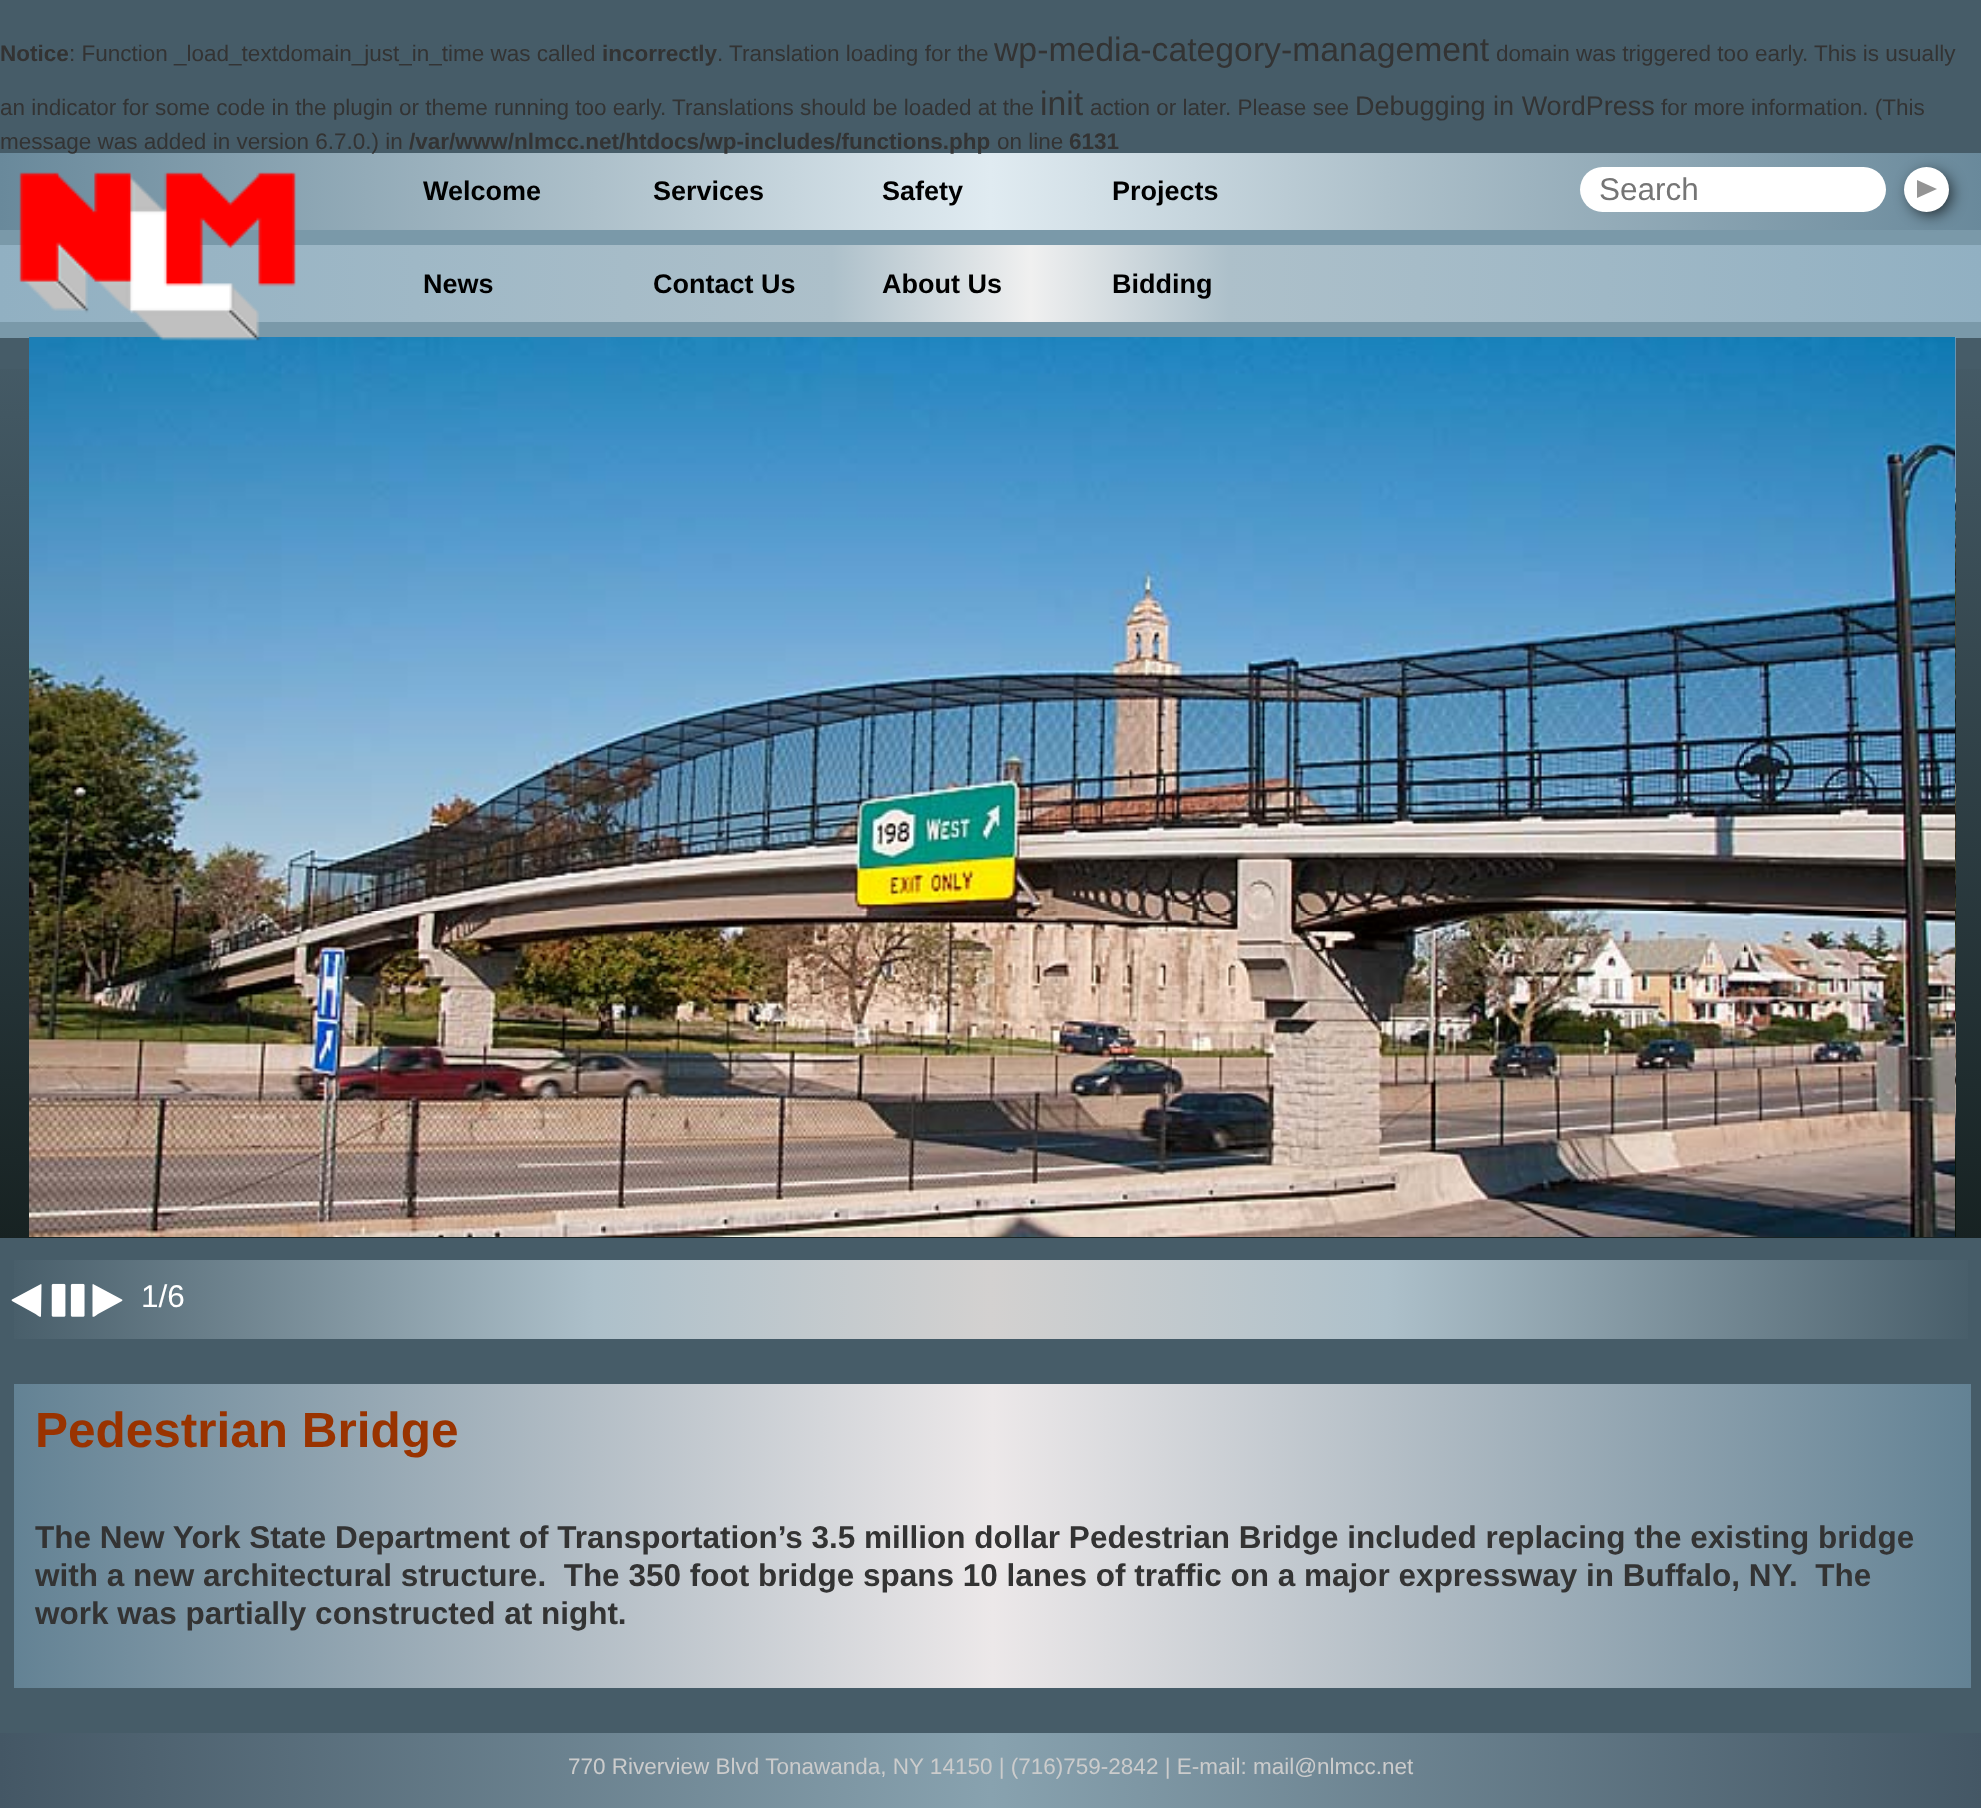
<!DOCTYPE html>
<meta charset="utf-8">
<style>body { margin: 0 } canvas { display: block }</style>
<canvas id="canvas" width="1981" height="1808"></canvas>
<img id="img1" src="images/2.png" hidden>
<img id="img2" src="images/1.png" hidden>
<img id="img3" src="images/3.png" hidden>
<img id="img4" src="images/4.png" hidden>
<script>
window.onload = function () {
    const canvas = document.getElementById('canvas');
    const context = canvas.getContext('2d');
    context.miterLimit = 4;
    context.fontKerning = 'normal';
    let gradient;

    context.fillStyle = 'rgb(70, 92, 104)';
    context.fillRect(0, 0, 1981, 1808);
    context.fillStyle = 'rgb(122, 153, 169)';
    context.fillRect(0, 230, 1981, 108);
    gradient = context.createLinearGradient(0, 191, 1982, 191);
    gradient.addColorStop(0, 'rgb(105, 137, 155)');
    gradient.addColorStop(0.3, 'rgb(173, 192, 202)');
    gradient.addColorStop(0.5, 'rgb(224, 235, 241)');
    gradient.addColorStop(0.7, 'rgb(173, 192, 202)');
    gradient.addColorStop(1, 'rgb(105, 137, 155)');
    context.fillStyle = gradient;
    context.fillRect(0, 153, 1981, 77);
    context.fillStyle = 'rgb(255, 255, 255)';
    context.beginPath();
    context.roundRect(1580, 167, 306, 45, 22.5);
    context.fill();
    context.fillStyle = 'rgba(0, 0, 0, 0.75)';
    context.filter = 'blur(8px)';
    context.beginPath();
    context.roundRect(1910, 173, 41, 41, 20.5);
    context.fill();
    context.filter = 'none';
    context.fillStyle = 'rgb(255, 255, 255)';
    context.beginPath();
    context.arc(1926.5, 189.5, 22.5, 0, 2 * Math.PI);
    context.fill();
    context.fillStyle = 'rgb(148, 148, 148)';
    context.beginPath();
    context.moveTo(1917, 198);
    context.lineTo(1917, 180);
    context.lineTo(1937, 189);
    context.closePath();
    context.fill();
    gradient = context.createLinearGradient(0, 284, 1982, 283);
    gradient.addColorStop(0, 'rgb(145, 176, 194)');
    gradient.addColorStop(0.42, 'rgb(173, 192, 202)');
    gradient.addColorStop(0.52, 'rgb(240, 240, 240)');
    gradient.addColorStop(0.62, 'rgb(173, 192, 202)');
    gradient.addColorStop(1, 'rgb(145, 176, 194)');
    context.fillStyle = gradient;
    context.fillRect(0, 245, 1981, 77);
    gradient = context.createLinearGradient(991, 337, 991, 1238);
    gradient.addColorStop(0, 'rgb(70, 92, 104)');
    gradient.addColorStop(1, 'rgb(23, 34, 34)');
    context.fillStyle = gradient;
    context.fillRect(0, 369, 1981, 869);
    context.drawImage(document.getElementById('img1'), 29, 337, 1926, 900);
    context.drawImage(document.getElementById('img2'), 19, 172, 277, 169);
    context.drawImage(document.getElementById('img3'), 1955, 337, 1, 900);
    gradient = context.createLinearGradient(0, 1299, 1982, 1299);
    gradient.addColorStop(0, 'rgb(70, 92, 104)');
    gradient.addColorStop(0.3, 'rgb(173, 192, 202)');
    gradient.addColorStop(0.5, 'rgb(211, 209, 208)');
    gradient.addColorStop(0.7, 'rgb(173, 192, 202)');
    gradient.addColorStop(1, 'rgb(70, 92, 104)');
    context.fillStyle = gradient;
    context.fillRect(14, 1260, 1954, 79);
    context.fillStyle = 'rgb(255, 255, 255)';
    context.beginPath();
    context.moveTo(12, 1301);
    context.lineTo(35.5, 1314);
    context.bezierCurveTo(36, 1314.5, 40.5, 1318, 41, 1316.5);
    context.lineTo(41.5, 1284.5);
    context.lineTo(41, 1284);
    context.lineTo(12, 1299.5);
    context.lineTo(11.5, 1300);
    context.closePath();
    context.fill();
    context.drawImage(document.getElementById('img4'), 51, 1283, 34, 34);
    context.beginPath();
    context.moveTo(122, 1301);
    context.lineTo(98, 1314);
    context.bezierCurveTo(97.5, 1314.5, 93.5, 1318, 92.5, 1316.5);
    context.lineTo(92.5, 1284.5);
    context.lineTo(93, 1284);
    context.lineTo(122, 1299.5);
    context.lineTo(122.5, 1300);
    context.closePath();
    context.fill();
    gradient = context.createLinearGradient(14, 1536, 1971, 1536);
    gradient.addColorStop(0, 'rgb(99, 130, 148)');
    gradient.addColorStop(0.5, 'rgb(236, 232, 233)');
    gradient.addColorStop(1, 'rgb(99, 130, 148)');
    context.fillStyle = gradient;
    context.fillRect(14, 1384, 1957, 304);
    gradient = context.createLinearGradient(0, 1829, 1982, 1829);
    gradient.addColorStop(0, 'rgb(68, 87, 101)');
    gradient.addColorStop(0.5, 'rgb(136, 162, 175)');
    gradient.addColorStop(1, 'rgb(68, 87, 101)');
    context.fillStyle = gradient;
    context.fillRect(0, 1733, 1981, 75);
    context.font = 'bold 22.5px Liberation Sans';
    context.fillStyle = 'rgb(51, 51, 51)';
    context.fillText('Notice', 0, 61);
    context.font = '22.5px Liberation Sans';
    context.fillText(': Function _load_textdomain_just_in_time was called', 69, 61);
    context.font = 'bold 22.5px Liberation Sans';
    context.fillText('incorrectly', 602, 61);
    context.font = '22.5px Liberation Sans';
    context.fillText('. Translation loading for the', 717, 61);
    context.font = '33.75px Liberation Sans';
    context.fillText('wp-media-category-management', 994, 61);
    context.font = '22.5px Liberation Sans';
    context.fillText('domain was triggered too early. This is usually', 1496, 61);
    context.fillText('an indicator for some code in the plugin or theme running too early. Translations should be loaded at the', 0, 115);
    context.font = '33.75px Liberation Sans';
    context.fillText('init', 1040, 115);
    context.font = '22.5px Liberation Sans';
    context.fillText('action or later. Please see', 1090, 115);
    context.font = '27px Liberation Sans';
    context.fillText('Debugging in WordPress', 1355, 115);
    context.font = '22.5px Liberation Sans';
    context.fillText('for more information. (This', 1661, 115);
    context.fillText('message was added in version 6.7.0.) in', 0, 149);
    context.font = 'bold 22.5px Liberation Sans';
    context.fillText('/var/www/nlmcc.net/htdocs/wp-includes/functions.php', 409, 149);
    context.font = '22.5px Liberation Sans';
    context.fillText('on line', 997, 149);
    context.font = 'bold 22.5px Liberation Sans';
    context.fillText('6131', 1069, 149);
    context.font = 'bold 27px Liberation Sans';
    context.fillStyle = 'rgb(0, 0, 0)';
    context.fillText('Welcome', 423, 200);
    context.fillText('Services', 653, 200);
    context.fillText('Safety', 882, 200);
    context.fillText('Projects', 1112, 200);
    context.font = '31.5px Liberation Sans';
    context.fillStyle = 'rgb(117, 117, 117)';
    context.fillText('Search', 1599, 200);
    context.font = 'bold 27px Liberation Sans';
    context.fillStyle = 'rgb(0, 0, 0)';
    context.fillText('News', 423, 293);
    context.fillText('Contact Us', 653, 293);
    context.fillText('About Us', 882, 293);
    context.fillText('Bidding', 1112, 293);
    context.font = '31.5px Liberation Sans';
    context.fillStyle = 'rgb(255, 255, 255)';
    context.fillText('1/6', 141, 1307);
    context.font = 'bold 49.5px Liberation Sans';
    context.fillStyle = 'rgb(153, 51, 0)';
    context.fillText('Pedestrian Bridge', 35, 1447);
    context.font = 'bold 31.5px Liberation Sans';
    context.fillStyle = 'rgb(51, 51, 51)';
    context.fillText('The New York State Department of Transportation’s 3.5 million dollar Pedestrian Bridge included replacing the existing bridge', 35, 1548);
    context.fillText('with a new architectural structure.  The 350 foot bridge spans 10 lanes of traffic on a major expressway in Buffalo, NY.  The', 35, 1586);
    context.fillText('work was partially constructed at night.', 35, 1624);
    context.font = '22.5px Liberation Sans';
    context.fillStyle = 'rgb(204, 204, 204)';
    context.fillText('770 Riverview Blvd Tonawanda, NY 14150 | (716)759-2842 | E-mail: mail@nlmcc.net', 568, 1774);
};
</script>
